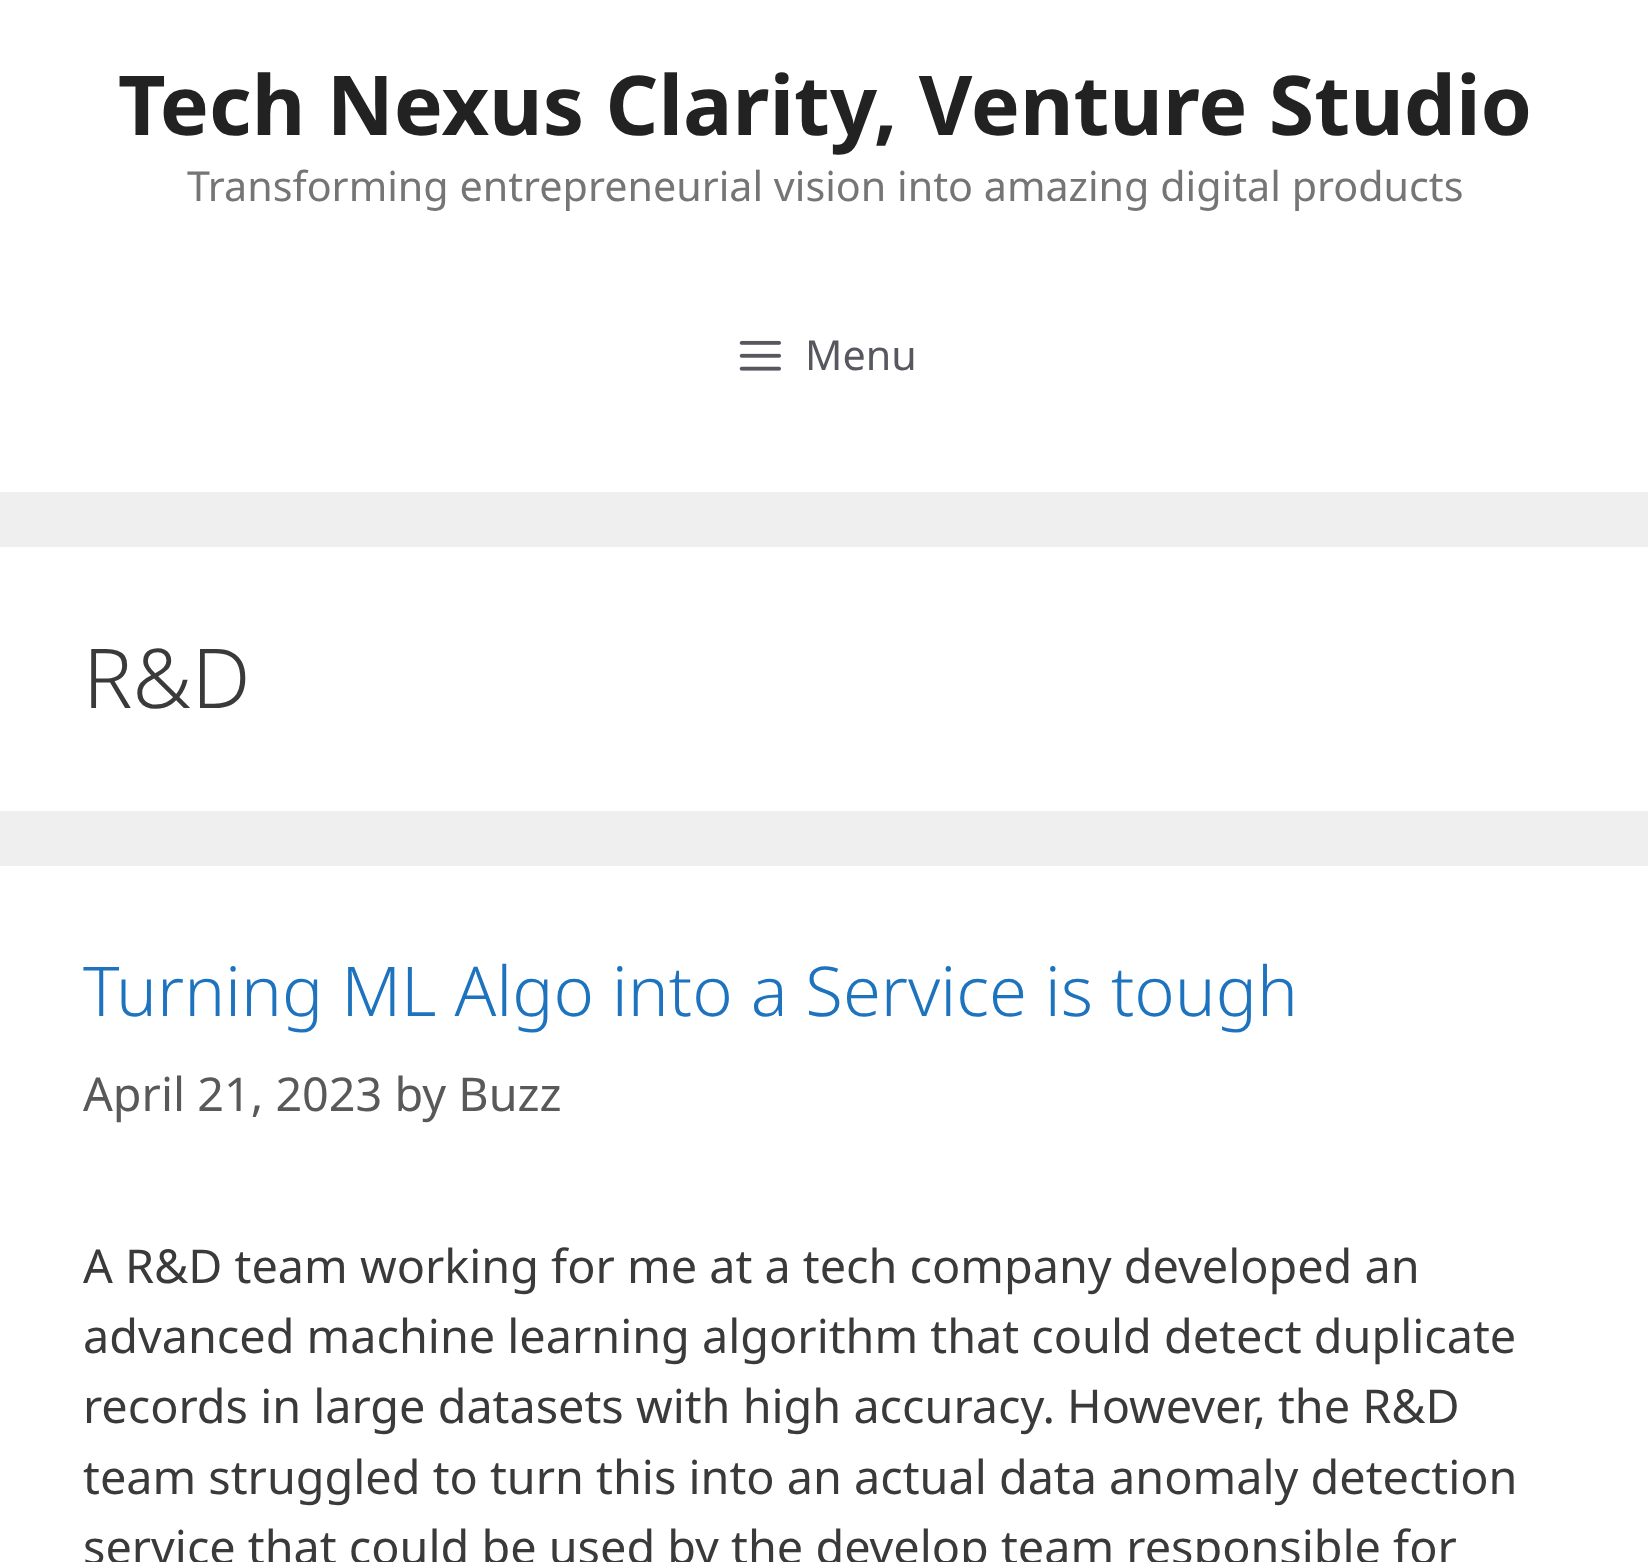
<!DOCTYPE html>
<meta charset="utf-8">
<style>body { margin: 0 } canvas { display: block }</style>
<canvas id="canvas" width="1648" height="1562"></canvas>
<img id="img1" src="images/1.png" hidden>
<script>
window.onload = function () {
    const canvas = document.getElementById('canvas');
    const context = canvas.getContext('2d');
    context.miterLimit = 4;
    context.fontKerning = 'normal';

    context.fillStyle = 'rgb(239, 239, 239)';
    context.fillRect(0, 0, 1648, 1562);
    context.fillStyle = 'rgb(255, 255, 255)';
    context.fillRect(0, 0, 1648, 492);
    context.drawImage(document.getElementById('img1'), 739, 340, 42, 31);
    context.fillRect(0, 547, 1648, 264);
    context.fillRect(0, 866, 1648, 696);
    context.font = 'bold 82.5px Noto Sans';
    context.fillStyle = 'rgb(34, 34, 34)';
    context.fillText('Tech Nexus Clarity, Venture Studio', 118, 135);
    context.font = '41.25px Noto Sans';
    context.fillStyle = 'rgb(117, 117, 117)';
    context.fillText('Transforming entrepreneurial vision into amazing digital products', 187, 201);
    context.fillStyle = 'rgb(87, 87, 96)';
    context.fillText('Menu', 805, 370);
    context.font = '300 82.5px Noto Sans';
    context.fillStyle = 'rgb(58, 58, 58)';
    context.fillText('R&D', 83, 708);
    context.font = '300 68.75px Noto Sans';
    context.fillStyle = 'rgb(30, 115, 190)';
    context.fillText('Turning ML Algo into a Service is tough', 83, 1016);
    context.font = '46.75px Noto Sans';
    context.fillStyle = 'rgb(89, 89, 89)';
    context.fillText('April 21, 2023 by Buzz', 83, 1111);
    context.fillStyle = 'rgb(58, 58, 58)';
    context.fillText('A R&D team working for me at a tech company developed an', 83, 1283);
    context.fillText('advanced machine learning algorithm that could detect duplicate', 83, 1353);
    context.fillText('records in large datasets with high accuracy. However, the R&D', 83, 1423);
    context.fillText('team struggled to turn this into an actual data anomaly detection', 83, 1494);
    context.fillText('service that could be used by the develop team responsible for', 83, 1564);
};
</script>
